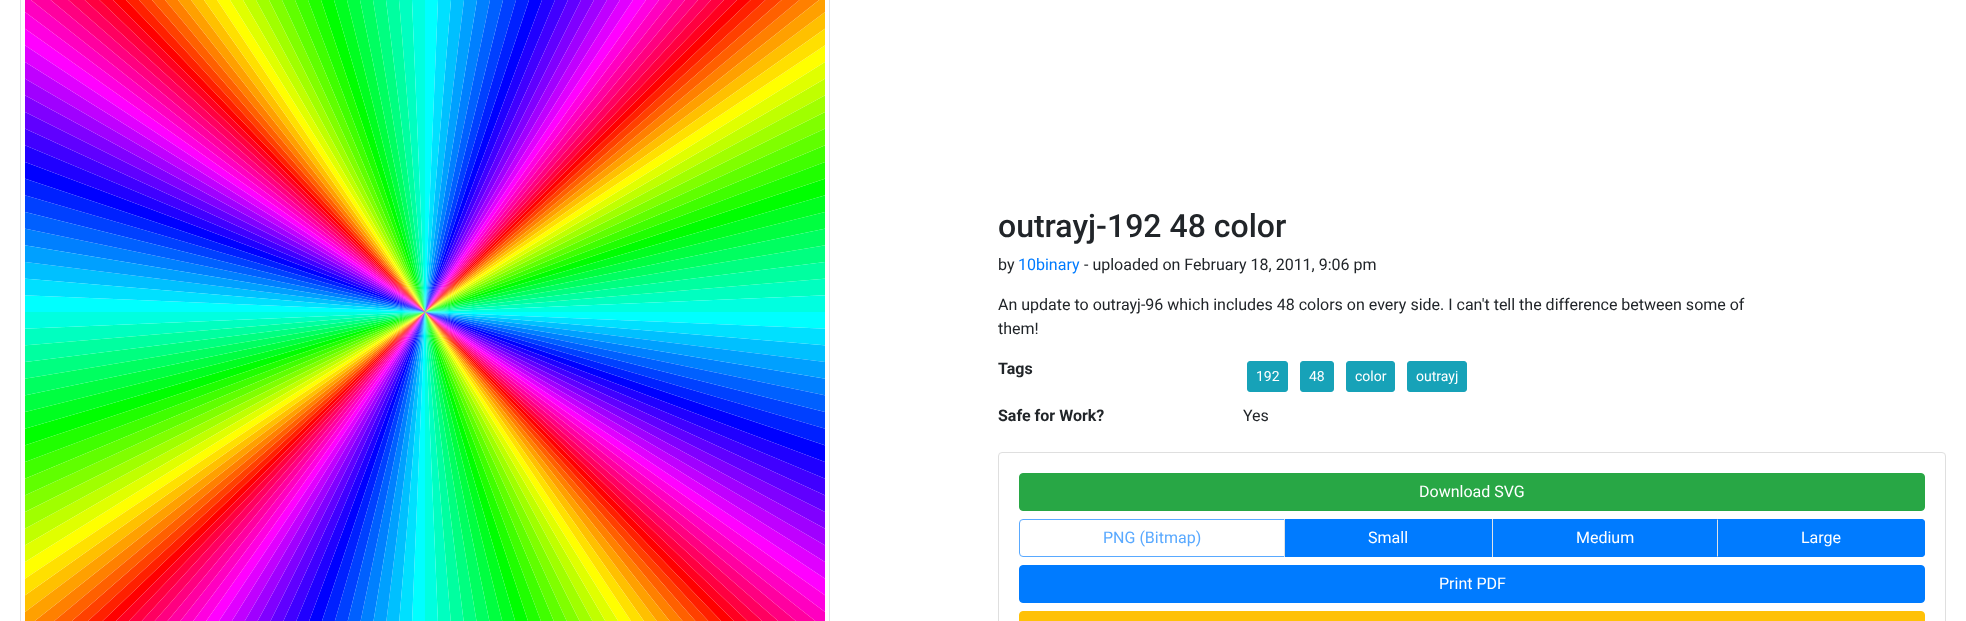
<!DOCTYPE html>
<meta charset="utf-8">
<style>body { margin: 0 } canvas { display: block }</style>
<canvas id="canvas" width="1966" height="621"></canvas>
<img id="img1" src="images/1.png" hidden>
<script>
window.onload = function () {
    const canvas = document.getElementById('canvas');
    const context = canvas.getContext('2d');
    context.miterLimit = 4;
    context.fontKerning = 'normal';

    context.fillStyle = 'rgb(255, 255, 255)';
    context.fillRect(0, 0, 1966, 621);
    context.strokeStyle = 'rgb(222, 226, 230)';
    context.strokeRect(20.5, -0.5, 809, 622);
    context.drawImage(document.getElementById('img1'), 25, 0, 800, 621);
    context.fillStyle = 'rgb(23, 162, 184)';
    context.beginPath();
    context.roundRect(1247.5, 361.5, 40, 30, 2.5);
    context.fill();
    context.strokeStyle = 'rgb(23, 162, 184)';
    context.stroke();
    context.beginPath();
    context.roundRect(1300.5, 361.5, 33, 30, 2.5);
    context.fill();
    context.stroke();
    context.beginPath();
    context.roundRect(1346.5, 361.5, 48, 30, 2.5);
    context.fill();
    context.stroke();
    context.beginPath();
    context.roundRect(1407.5, 361.5, 59, 30, 2.5);
    context.fill();
    context.stroke();
    context.beginPath();
    context.roundRect(998.5, 452.5, 947, 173, 3.5);
    context.strokeStyle = 'rgb(223, 223, 223)';
    context.stroke();
    context.fillStyle = 'rgb(40, 167, 69)';
    context.beginPath();
    context.roundRect(1019.5, 473.5, 905, 37, 3.5);
    context.fill();
    context.strokeStyle = 'rgb(40, 167, 69)';
    context.stroke();
    context.beginPath();
    context.roundRect(1019.5, 519.5, 265, 37, [3.5, 0, 0, 3.5]);
    context.strokeStyle = 'rgb(89, 169, 255)';
    context.stroke();
    context.fillStyle = 'rgb(0, 123, 255)';
    context.fillRect(1285, 519, 207, 38);
    context.fillStyle = 'rgb(222, 226, 230)';
    context.fillRect(1284, 519, 1, 38);
    context.fillStyle = 'rgb(0, 123, 255)';
    context.fillRect(1493, 519, 224, 38);
    context.fillStyle = 'rgb(222, 226, 230)';
    context.fillRect(1492, 519, 1, 38);
    context.fillStyle = 'rgb(0, 123, 255)';
    context.beginPath();
    context.roundRect(1717, 519, 208, 38, [0, 4, 4, 0]);
    context.fill();
    context.beginPath();
    context.moveTo(1717, 519);
    context.lineTo(1718, 520);
    context.lineTo(1921, 520);
    context.lineTo(1923, 521);
    context.lineTo(1924, 520);
    context.lineTo(1921, 519);
    context.closePath();
    context.fill();
    context.beginPath();
    context.moveTo(1925, 553);
    context.lineTo(1925, 523);
    context.bezierCurveTo(1925, 522, 1924.5, 521, 1924, 520);
    context.lineTo(1923, 521);
    context.bezierCurveTo(1924, 521, 1924, 522, 1924, 523);
    context.lineTo(1924, 553);
    context.bezierCurveTo(1924, 554, 1924, 555, 1923, 555);
    context.lineTo(1924, 556);
    context.bezierCurveTo(1924.5, 555, 1925, 554, 1925, 553);
    context.closePath();
    context.fill();
    context.beginPath();
    context.moveTo(1921, 557);
    context.lineTo(1924, 556);
    context.lineTo(1923, 555);
    context.lineTo(1921, 556);
    context.lineTo(1718, 556);
    context.lineTo(1717, 557);
    context.closePath();
    context.fill();
    context.fillStyle = 'rgb(222, 226, 230)';
    context.beginPath();
    context.moveTo(1717, 519);
    context.lineTo(1717, 557);
    context.lineTo(1718, 556);
    context.lineTo(1718, 520);
    context.closePath();
    context.fill();
    context.fillStyle = 'rgb(0, 123, 255)';
    context.beginPath();
    context.roundRect(1019.5, 565.5, 905, 37, 3.5);
    context.fill();
    context.strokeStyle = 'rgb(0, 123, 255)';
    context.stroke();
    context.fillStyle = 'rgb(255, 193, 7)';
    context.beginPath();
    context.roundRect(1019.5, 611.5, 905, 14, 3.5);
    context.fill();
    context.strokeStyle = 'rgb(255, 193, 7)';
    context.stroke();
    context.font = '500 32px Roboto';
    context.fillStyle = 'rgb(33, 37, 41)';
    context.fillText('outrayj-192 48 color', 998, 237);
    context.font = '16px Roboto';
    context.fillText('by', 998, 270);
    context.fillStyle = 'rgb(0, 123, 255)';
    context.fillText('10binary', 1018, 270);
    context.fillStyle = 'rgb(33, 37, 41)';
    context.fillText('- uploaded on February 18, 2011, 9:06 pm', 1084, 270);
    context.fillText('An update to outrayj-96 which includes 48 colors on every side. I can\'t tell the difference between some of', 998, 310);
    context.fillText('them!', 998, 334);
    context.font = 'bold 16px Roboto';
    context.fillText('Tags', 998, 374);
    context.font = '14px Roboto';
    context.fillStyle = 'rgb(255, 255, 255)';
    context.fillText('192', 1256, 381);
    context.fillText('48', 1309, 381);
    context.fillText('color', 1355, 381);
    context.fillText('outrayj', 1416, 381);
    context.font = 'bold 16px Roboto';
    context.fillStyle = 'rgb(33, 37, 41)';
    context.fillText('Safe for Work?', 998, 421);
    context.font = '16px Roboto';
    context.fillText('Yes', 1243, 421);
    context.fillStyle = 'rgb(255, 255, 255)';
    context.fillText('Download SVG', 1419, 497);
    context.fillStyle = 'rgb(89, 169, 255)';
    context.fillText('PNG (Bitmap)', 1103, 543);
    context.fillStyle = 'rgb(255, 255, 255)';
    context.fillText('Small', 1368, 543);
    context.fillText('Medium', 1576, 543);
    context.fillText('Large', 1801, 543);
    context.fillText('Print PDF', 1439, 589);
};
</script>
